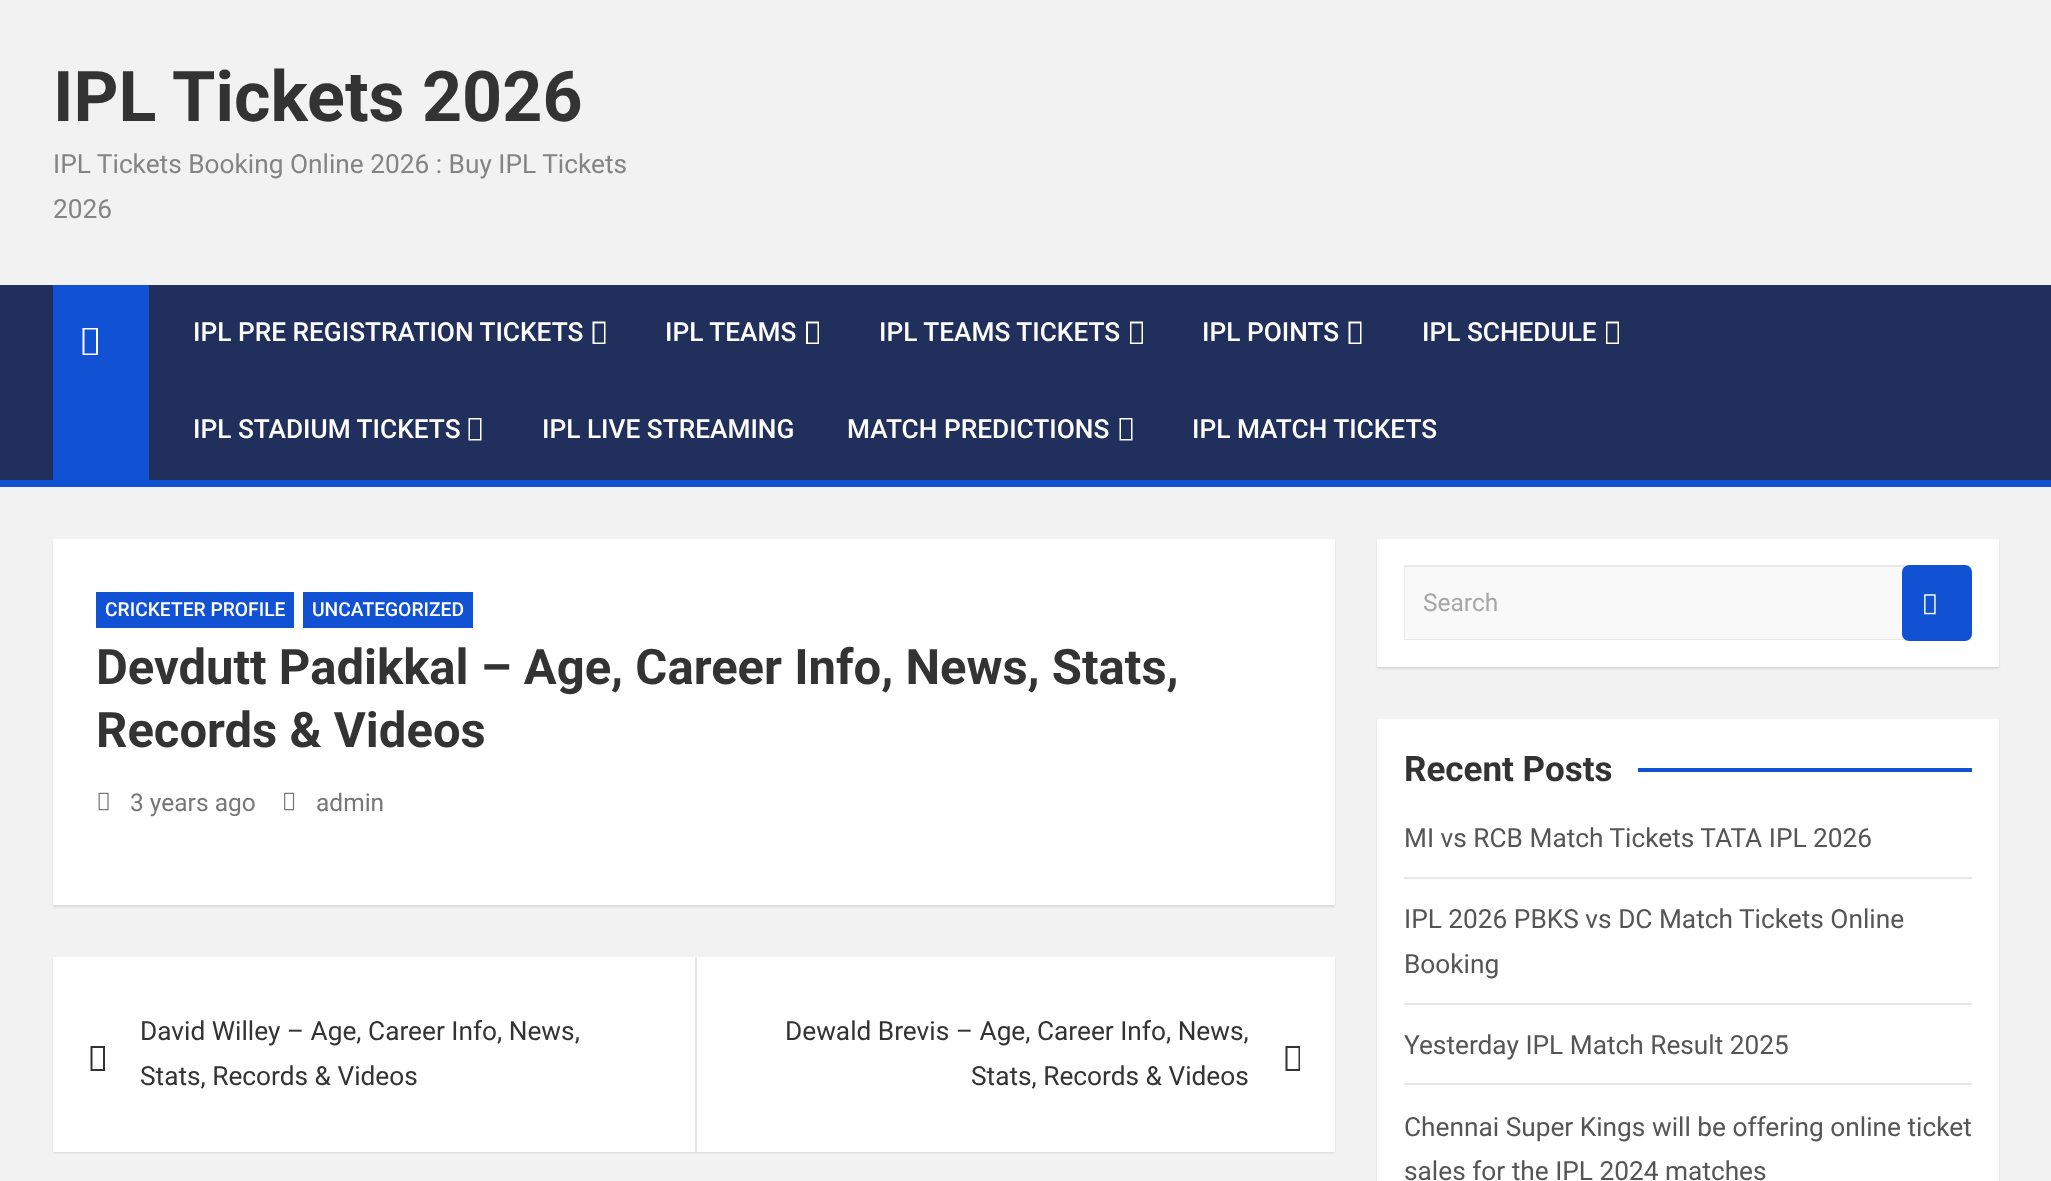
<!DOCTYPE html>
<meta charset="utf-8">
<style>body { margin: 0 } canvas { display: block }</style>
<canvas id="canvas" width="2051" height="1181"></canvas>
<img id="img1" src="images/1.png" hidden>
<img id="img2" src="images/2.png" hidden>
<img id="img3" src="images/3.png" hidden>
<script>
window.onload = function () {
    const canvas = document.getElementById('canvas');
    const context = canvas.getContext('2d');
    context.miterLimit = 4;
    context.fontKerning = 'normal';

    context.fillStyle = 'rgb(242, 242, 242)';
    context.fillRect(0, 0, 2051, 1181);
    context.fillStyle = 'rgb(32, 47, 91)';
    context.fillRect(0, 285, 2051, 195);
    context.fillStyle = 'rgb(17, 81, 211)';
    context.fillRect(0, 480, 2051, 7);
    context.fillRect(53, 285, 96, 195);
    context.fillStyle = 'rgb(255, 255, 255)';
    context.beginPath();
    context.moveTo(82.5, 355);
    context.lineTo(82.5, 328);
    context.lineTo(98, 328);
    context.lineTo(98, 355);
    context.closePath();
    context.moveTo(84.5, 353.5);
    context.lineTo(96, 353.5);
    context.lineTo(96, 329.5);
    context.lineTo(84.5, 329.5);
    context.closePath();
    context.fill();
    context.beginPath();
    context.moveTo(592.5, 344);
    context.lineTo(592.5, 321.5);
    context.lineTo(605.5, 321.5);
    context.lineTo(605.5, 344);
    context.closePath();
    context.moveTo(594.5, 342.5);
    context.lineTo(604, 342.5);
    context.lineTo(604, 323.5);
    context.lineTo(594.5, 323.5);
    context.closePath();
    context.fill();
    context.beginPath();
    context.moveTo(806, 344);
    context.lineTo(806, 321.5);
    context.lineTo(819, 321.5);
    context.lineTo(819, 344);
    context.closePath();
    context.moveTo(808, 342.5);
    context.lineTo(817.5, 342.5);
    context.lineTo(817.5, 323.5);
    context.lineTo(808, 323.5);
    context.closePath();
    context.fill();
    context.beginPath();
    context.moveTo(1130, 344);
    context.lineTo(1130, 321.5);
    context.lineTo(1143, 321.5);
    context.lineTo(1143, 344);
    context.closePath();
    context.moveTo(1131.5, 342.5);
    context.lineTo(1141.5, 342.5);
    context.lineTo(1141.5, 323.5);
    context.lineTo(1131.5, 323.5);
    context.closePath();
    context.fill();
    context.beginPath();
    context.moveTo(1348.5, 344);
    context.lineTo(1348.5, 321.5);
    context.lineTo(1361.5, 321.5);
    context.lineTo(1361.5, 344);
    context.closePath();
    context.moveTo(1350.5, 342.5);
    context.lineTo(1360, 342.5);
    context.lineTo(1360, 323.5);
    context.lineTo(1350.5, 323.5);
    context.closePath();
    context.fill();
    context.beginPath();
    context.moveTo(1606, 344);
    context.lineTo(1606, 321.5);
    context.lineTo(1619, 321.5);
    context.lineTo(1619, 344);
    context.closePath();
    context.moveTo(1607.5, 342.5);
    context.lineTo(1617.5, 342.5);
    context.lineTo(1617.5, 323.5);
    context.lineTo(1607.5, 323.5);
    context.closePath();
    context.fill();
    context.beginPath();
    context.moveTo(468.5, 440.5);
    context.lineTo(468.5, 418);
    context.lineTo(481.5, 418);
    context.lineTo(481.5, 440.5);
    context.closePath();
    context.moveTo(470, 439);
    context.lineTo(480, 439);
    context.lineTo(480, 419.5);
    context.lineTo(470, 419.5);
    context.closePath();
    context.fill();
    context.beginPath();
    context.moveTo(1119.5, 440.5);
    context.lineTo(1119.5, 418);
    context.lineTo(1132.5, 418);
    context.lineTo(1132.5, 440.5);
    context.closePath();
    context.moveTo(1121, 439);
    context.lineTo(1131, 439);
    context.lineTo(1131, 419.5);
    context.lineTo(1121, 419.5);
    context.closePath();
    context.fill();
    context.fillStyle = 'rgba(0, 0, 0, 0.1)';
    context.filter = 'blur(1px)';
    context.beginPath();
    context.rect(53, 541, 1282, 366);
    context.fill();
    context.filter = 'none';
    context.fillStyle = 'rgb(255, 255, 255)';
    context.fillRect(53, 539, 1282, 366);
    context.fillStyle = 'rgb(17, 81, 211)';
    context.fillRect(96, 592, 198, 36);
    context.fillRect(303, 592, 170, 36);
    context.drawImage(document.getElementById('img1'), 98, 792, 11, 19);
    context.drawImage(document.getElementById('img2'), 284, 792, 11, 19);
    context.fillStyle = 'rgba(0, 0, 0, 0.1)';
    context.filter = 'blur(1px)';
    context.beginPath();
    context.rect(53, 959, 1282, 194);
    context.fill();
    context.filter = 'none';
    context.fillStyle = 'rgb(255, 255, 255)';
    context.fillRect(53, 957, 1282, 195);
    context.fillStyle = 'rgb(51, 51, 51)';
    context.beginPath();
    context.moveTo(90.5, 1071);
    context.lineTo(90.5, 1046);
    context.lineTo(105, 1046);
    context.lineTo(105, 1071);
    context.closePath();
    context.moveTo(92.5, 1069);
    context.lineTo(103, 1069);
    context.lineTo(103, 1048);
    context.lineTo(92.5, 1048);
    context.closePath();
    context.fill();
    context.fillStyle = 'rgb(230, 230, 230)';
    context.fillRect(695, 957, 2, 195);
    context.fillStyle = 'rgb(51, 51, 51)';
    context.beginPath();
    context.moveTo(1285.5, 1071);
    context.lineTo(1285.5, 1046);
    context.lineTo(1300, 1046);
    context.lineTo(1300, 1071);
    context.closePath();
    context.moveTo(1287.5, 1069);
    context.lineTo(1298.5, 1069);
    context.lineTo(1298.5, 1048);
    context.lineTo(1287.5, 1048);
    context.closePath();
    context.fill();
    context.fillStyle = 'rgba(0, 0, 0, 0.1)';
    context.filter = 'blur(1px)';
    context.beginPath();
    context.rect(1377, 541, 622, 128);
    context.fill();
    context.filter = 'none';
    context.fillStyle = 'rgb(255, 255, 255)';
    context.fillRect(1377, 539, 622, 128);
    context.fillStyle = 'rgb(249, 249, 249)';
    context.fillRect(1405, 567, 499, 72);
    context.fillStyle = 'rgb(232, 232, 232)';
    context.beginPath();
    context.moveTo(1404, 565);
    context.lineTo(1904, 565);
    context.lineTo(1904, 567);
    context.lineTo(1405, 567);
    context.closePath();
    context.fill();
    context.beginPath();
    context.moveTo(1904, 640);
    context.lineTo(1404, 640);
    context.lineTo(1405, 639);
    context.lineTo(1904, 639);
    context.closePath();
    context.fill();
    context.fillStyle = 'rgba(0, 0, 0, 0.09)';
    context.beginPath();
    context.moveTo(1404, 640);
    context.lineTo(1404, 565);
    context.lineTo(1405, 567);
    context.lineTo(1405, 639);
    context.closePath();
    context.fill();
    context.fillStyle = 'rgb(17, 81, 211)';
    context.beginPath();
    context.roundRect(1902, 565, 70, 76, 7);
    context.fill();
    context.drawImage(document.getElementById('img3'), 1924, 594, 12, 21);
    context.fillStyle = 'rgba(0, 0, 0, 0.1)';
    context.filter = 'blur(1px)';
    context.beginPath();
    context.rect(1377, 721, 622, 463);
    context.fill();
    context.filter = 'none';
    context.fillStyle = 'rgb(255, 255, 255)';
    context.fillRect(1377, 719, 622, 462);
    context.fillStyle = 'rgb(17, 81, 211)';
    context.fillRect(1638, 768, 334, 4);
    context.fillStyle = 'rgb(230, 230, 230)';
    context.fillRect(1404, 877, 568, 2);
    context.fillRect(1404, 1003, 568, 2);
    context.fillRect(1404, 1083, 568, 2);
    context.font = 'bold 70px Roboto';
    context.fillStyle = 'rgb(51, 51, 51)';
    context.fillText('IPL Tickets 2026', 53, 121);
    context.font = '26.25px Roboto';
    context.fillStyle = 'rgb(132, 132, 132)';
    context.fillText('IPL Tickets Booking Online 2026 : Buy IPL Tickets', 53, 173);
    context.fillText('2026', 53, 218);
    context.font = '500 26.25px Roboto';
    context.fillStyle = 'rgb(255, 255, 255)';
    context.fillText('IPL PRE REGISTRATION TICKETS', 193, 341);
    context.fillText('IPL TEAMS', 665, 341);
    context.fillText('IPL TEAMS TICKETS', 879, 341);
    context.fillText('IPL POINTS', 1202, 341);
    context.fillText('IPL SCHEDULE', 1422, 341);
    context.fillText('IPL STADIUM TICKETS', 193, 438);
    context.fillText('IPL LIVE STREAMING', 542, 438);
    context.fillText('MATCH PREDICTIONS', 847, 438);
    context.fillText('IPL MATCH TICKETS', 1192, 438);
    context.font = '500 19.25px Roboto';
    context.fillText('CRICKETER PROFILE', 105, 616);
    context.fillText('UNCATEGORIZED', 312, 616);
    context.font = 'bold 49px Roboto';
    context.fillStyle = 'rgb(51, 51, 51)';
    context.fillText('Devdutt Padikkal – Age, Career Info, News, Stats,', 96, 684);
    context.fillText('Records & Videos', 96, 747);
    context.font = '24.5px Roboto';
    context.fillStyle = 'rgb(119, 119, 119)';
    context.fillText('3 years ago', 130, 811);
    context.fillText('admin', 316, 811);
    context.font = '26.25px Roboto';
    context.fillStyle = 'rgb(51, 51, 51)';
    context.fillText('David Willey – Age, Career Info, News,', 140, 1040);
    context.fillText('Stats, Records & Videos', 140, 1085);
    context.fillText('Dewald Brevis – Age, Career Info, News,', 785, 1040);
    context.fillText('Stats, Records & Videos', 971, 1085);
    context.font = '24.5px Roboto';
    context.fillStyle = 'rgb(167, 167, 167)';
    context.fillText('Search', 1423, 611);
    context.font = 'bold 35px Roboto';
    context.fillStyle = 'rgb(51, 51, 51)';
    context.fillText('Recent Posts', 1404, 781);
    context.font = '26.25px Roboto';
    context.fillStyle = 'rgb(85, 85, 85)';
    context.fillText('MI vs RCB Match Tickets TATA IPL 2026', 1404, 847);
    context.fillText('IPL 2026 PBKS vs DC Match Tickets Online', 1404, 928);
    context.fillText('Booking', 1404, 973);
    context.fillText('Yesterday IPL Match Result 2025', 1404, 1054);
    context.fillText('Chennai Super Kings will be offering online ticket', 1404, 1136);
    context.fillText('sales for the IPL 2024 matches', 1404, 1180);
};
</script>
